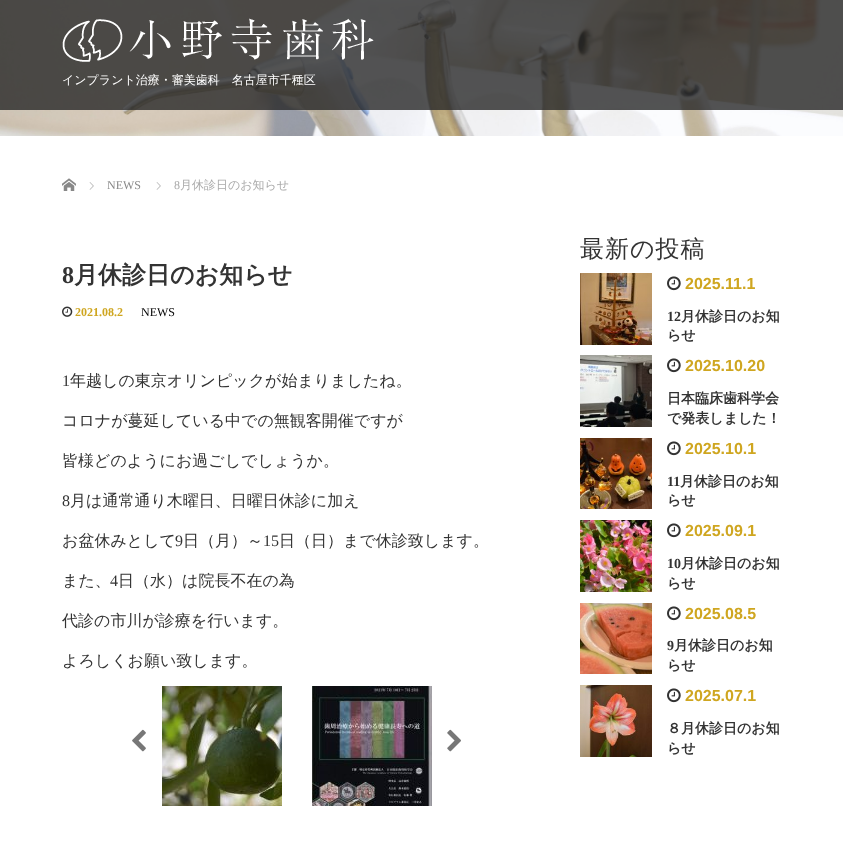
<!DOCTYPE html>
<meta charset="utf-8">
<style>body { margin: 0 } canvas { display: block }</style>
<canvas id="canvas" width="843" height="851"></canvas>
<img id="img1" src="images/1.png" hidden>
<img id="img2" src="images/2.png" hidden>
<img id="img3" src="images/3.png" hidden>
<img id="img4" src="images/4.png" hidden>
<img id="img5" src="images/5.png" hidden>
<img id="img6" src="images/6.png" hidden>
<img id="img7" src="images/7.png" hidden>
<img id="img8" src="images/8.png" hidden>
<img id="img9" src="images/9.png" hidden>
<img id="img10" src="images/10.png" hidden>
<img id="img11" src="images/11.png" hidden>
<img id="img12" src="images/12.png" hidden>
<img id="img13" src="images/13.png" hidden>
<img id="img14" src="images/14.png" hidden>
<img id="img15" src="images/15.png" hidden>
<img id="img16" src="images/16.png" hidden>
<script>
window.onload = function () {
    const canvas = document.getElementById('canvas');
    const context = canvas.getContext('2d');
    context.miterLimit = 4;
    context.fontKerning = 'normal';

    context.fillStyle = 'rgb(255, 255, 255)';
    context.fillRect(0, 0, 843, 851);
    context.drawImage(document.getElementById('img1'), 0, 0, 843, 136);
    context.fillStyle = 'rgba(40, 40, 40, 0.8)';
    context.fillRect(0, 0, 843, 110);
    context.drawImage(document.getElementById('img2'), 62, 18, 312, 44);
    context.drawImage(document.getElementById('img3'), 62, 178, 14, 13);
    context.drawImage(document.getElementById('img4'), 89, 182, 5, 8);
    context.drawImage(document.getElementById('img4'), 156, 182, 5, 8);
    context.drawImage(document.getElementById('img5'), 62, 306, 11, 11);
    context.drawImage(document.getElementById('img6'), 132, 729, 14, 23);
    context.drawImage(document.getElementById('img7'), 162, 686, 120, 120);
    context.drawImage(document.getElementById('img8'), 312, 686, 120, 120);
    context.drawImage(document.getElementById('img9'), 447, 729, 14, 23);
    context.drawImage(document.getElementById('img10'), 580, 273, 72, 72);
    context.drawImage(document.getElementById('img11'), 667, 276, 14, 15);
    context.drawImage(document.getElementById('img12'), 580, 355, 72, 72);
    context.drawImage(document.getElementById('img11'), 667, 358, 14, 15);
    context.drawImage(document.getElementById('img13'), 580, 438, 72, 71);
    context.drawImage(document.getElementById('img11'), 667, 441, 14, 15);
    context.drawImage(document.getElementById('img14'), 580, 520, 72, 72);
    context.drawImage(document.getElementById('img11'), 667, 523, 14, 15);
    context.drawImage(document.getElementById('img15'), 580, 603, 72, 71);
    context.drawImage(document.getElementById('img11'), 667, 606, 14, 15);
    context.drawImage(document.getElementById('img16'), 580, 685, 72, 72);
    context.drawImage(document.getElementById('img11'), 667, 688, 14, 15);
    context.font = '500 12px WenQuanYi Zen Hei';
    context.fillStyle = 'rgb(255, 255, 255)';
    context.fillText('インプラント治療・審美歯科　名古屋市千種区', 62, 84);
    context.font = '12px Liberation Serif';
    context.fillStyle = 'rgb(136, 136, 136)';
    context.fillText('NEWS', 107, 189);
    context.fillStyle = 'rgb(170, 170, 170)';
    context.fillText('8', 174, 189);
    context.font = '500 12px WenQuanYi Zen Hei';
    context.fillText('月休診日のお知らせ', 180, 189);
    context.font = 'bold 24px Liberation Serif';
    context.fillStyle = 'rgb(51, 51, 51)';
    context.fillText('8', 62, 283);
    context.font = 'bold 24px WenQuanYi Zen Hei';
    context.fillText('月休診日のお知らせ', 74, 283);
    context.font = 'bold 12px Liberation Serif';
    context.fillStyle = 'rgb(207, 166, 32)';
    context.fillText('2021.08.2', 75, 316);
    context.font = '12px Liberation Serif';
    context.fillStyle = 'rgb(0, 0, 0)';
    context.fillText('NEWS', 141, 316);
    context.font = '16px Liberation Serif';
    context.fillStyle = 'rgb(51, 51, 51)';
    context.fillText('1', 62, 386);
    context.font = '500 16px WenQuanYi Zen Hei';
    context.fillText('年越しの東京オリンピックが始まりましたね。', 70, 386);
    context.fillText('コロナが蔓延している中での無観客開催ですが', 62, 426);
    context.fillText('皆様どのようにお過ごしでしょうか。', 62, 466);
    context.font = '16px Liberation Serif';
    context.fillText('8', 62, 506);
    context.font = '500 16px WenQuanYi Zen Hei';
    context.fillText('月は通常通り木曜日、日曜日休診に加え', 70, 506);
    context.fillText('お盆休みとして', 62, 546);
    context.font = '16px Liberation Serif';
    context.fillText('9', 175, 546);
    context.font = '500 16px WenQuanYi Zen Hei';
    context.fillText('日（月）～', 183, 546);
    context.font = '16px Liberation Serif';
    context.fillText('15', 263, 546);
    context.font = '500 16px WenQuanYi Zen Hei';
    context.fillText('日（日）まで休診致します。', 279, 546);
    context.fillText('また、', 62, 586);
    context.font = '16px Liberation Serif';
    context.fillText('4', 110, 586);
    context.font = '500 16px WenQuanYi Zen Hei';
    context.fillText('日（水）は院長不在の為', 118, 586);
    context.fillText('代診の市川が診療を行います。', 62, 626);
    context.fillText('よろしくお願い致します。', 62, 666);
    context.letterSpacing = '1px';
    context.font = '500 24px WenQuanYi Zen Hei';
    context.fillText('最新の投稿', 580, 257);
    context.letterSpacing = '0px';
    context.font = 'bold 16px Liberation Sans';
    context.fillStyle = 'rgb(207, 166, 32)';
    context.fillText('2025.11.1', 685, 289);
    context.font = 'bold 14px Liberation Serif';
    context.fillStyle = 'rgb(51, 51, 51)';
    context.fillText('12', 667, 321);
    context.font = 'bold 14px WenQuanYi Zen Hei';
    context.fillText('月休診日のお知', 681, 321);
    context.fillText('らせ', 667, 340);
    context.font = 'bold 16px Liberation Sans';
    context.fillStyle = 'rgb(207, 166, 32)';
    context.fillText('2025.10.20', 685, 371);
    context.font = 'bold 14px WenQuanYi Zen Hei';
    context.fillStyle = 'rgb(51, 51, 51)';
    context.fillText('日本臨床歯科学会', 667, 403);
    context.fillText('で発表しました！', 667, 423);
    context.font = 'bold 16px Liberation Sans';
    context.fillStyle = 'rgb(207, 166, 32)';
    context.fillText('2025.10.1', 685, 454);
    context.font = 'bold 14px Liberation Serif';
    context.fillStyle = 'rgb(51, 51, 51)';
    context.fillText('11', 667, 486);
    context.font = 'bold 14px WenQuanYi Zen Hei';
    context.fillText('月休診日のお知', 680, 486);
    context.fillText('らせ', 667, 505);
    context.font = 'bold 16px Liberation Sans';
    context.fillStyle = 'rgb(207, 166, 32)';
    context.fillText('2025.09.1', 685, 536);
    context.font = 'bold 14px Liberation Serif';
    context.fillStyle = 'rgb(51, 51, 51)';
    context.fillText('10', 667, 568);
    context.font = 'bold 14px WenQuanYi Zen Hei';
    context.fillText('月休診日のお知', 681, 568);
    context.fillText('らせ', 667, 588);
    context.font = 'bold 16px Liberation Sans';
    context.fillStyle = 'rgb(207, 166, 32)';
    context.fillText('2025.08.5', 685, 619);
    context.font = 'bold 14px Liberation Serif';
    context.fillStyle = 'rgb(51, 51, 51)';
    context.fillText('9', 667, 650);
    context.font = 'bold 14px WenQuanYi Zen Hei';
    context.fillText('月休診日のお知', 674, 650);
    context.fillText('らせ', 667, 670);
    context.font = 'bold 16px Liberation Sans';
    context.fillStyle = 'rgb(207, 166, 32)';
    context.fillText('2025.07.1', 685, 701);
    context.font = 'bold 14px WenQuanYi Zen Hei';
    context.fillStyle = 'rgb(51, 51, 51)';
    context.fillText('８月休診日のお知', 667, 733);
    context.fillText('らせ', 667, 753);
};
</script>
